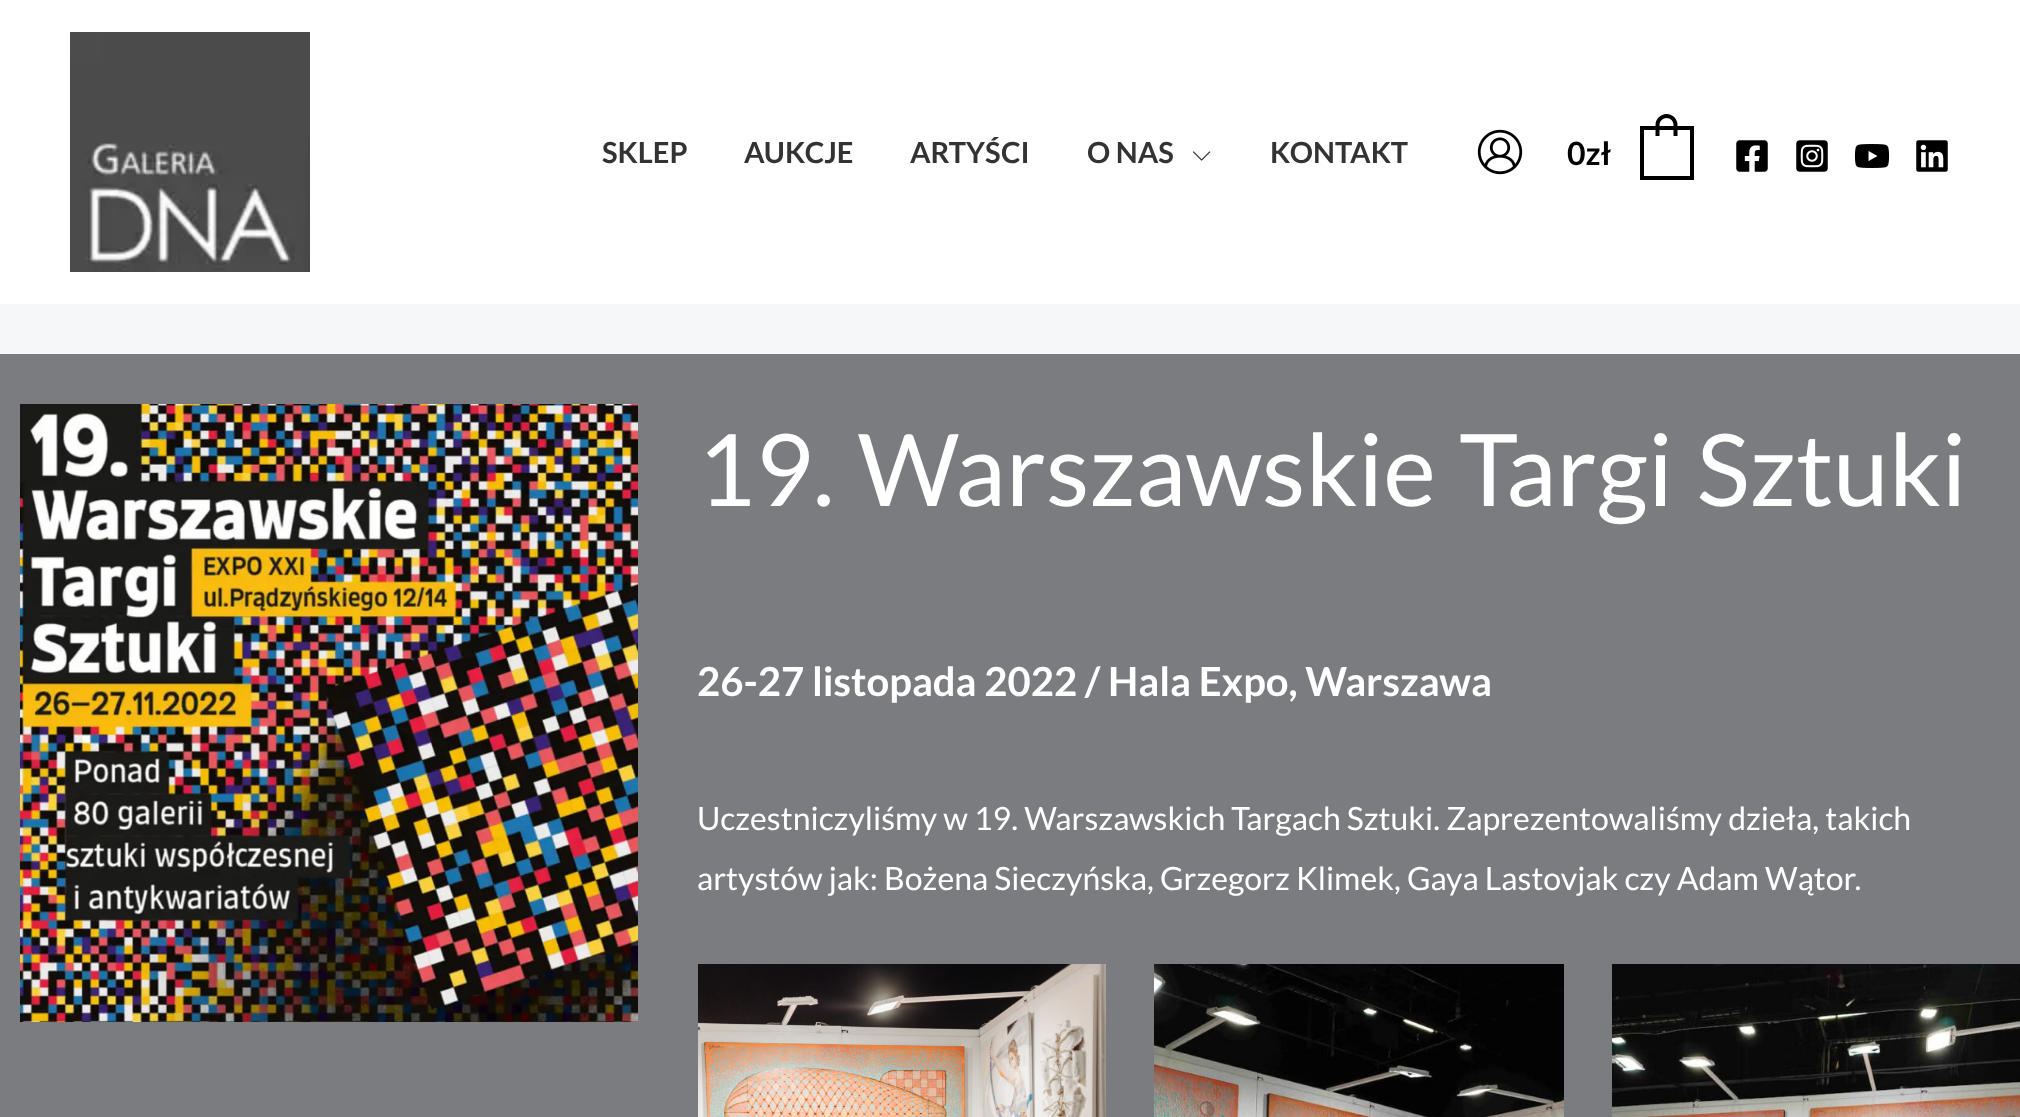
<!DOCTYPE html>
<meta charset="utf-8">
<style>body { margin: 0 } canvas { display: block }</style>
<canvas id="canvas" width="2020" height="1117"></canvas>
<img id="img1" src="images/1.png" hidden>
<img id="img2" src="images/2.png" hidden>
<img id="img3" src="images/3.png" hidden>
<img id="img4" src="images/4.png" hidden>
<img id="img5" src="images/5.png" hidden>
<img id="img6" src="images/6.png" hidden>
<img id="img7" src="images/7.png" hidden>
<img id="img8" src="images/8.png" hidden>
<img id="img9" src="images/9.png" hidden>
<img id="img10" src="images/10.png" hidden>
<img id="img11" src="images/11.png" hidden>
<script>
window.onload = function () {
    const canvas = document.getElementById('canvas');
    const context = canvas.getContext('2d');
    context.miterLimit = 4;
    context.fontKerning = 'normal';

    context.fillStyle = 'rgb(245, 247, 249)';
    context.fillRect(0, 0, 2020, 1117);
    context.fillStyle = 'rgb(255, 255, 255)';
    context.fillRect(0, 0, 2020, 304);
    context.drawImage(document.getElementById('img1'), 70, 32, 240, 240);
    context.drawImage(document.getElementById('img2'), 1193, 151, 18, 10);
    context.drawImage(document.getElementById('img3'), 1477, 129, 46, 46);
    context.strokeStyle = 'rgb(0, 0, 0)';
    context.lineWidth = 4;
    context.strokeRect(1642, 128, 50, 50);
    context.fillStyle = 'rgb(0, 0, 0)';
    context.beginPath();
    context.moveTo(1666.5, 114);
    context.bezierCurveTo(1673, 114, 1677.5, 119, 1677.5, 125);
    context.lineTo(1677.5, 136);
    context.lineTo(1655.5, 136);
    context.lineTo(1655.5, 125);
    context.bezierCurveTo(1655.5, 119, 1660.5, 114, 1666.5, 114);
    context.closePath();
    context.moveTo(1666.5, 118);
    context.bezierCurveTo(1670.5, 118, 1673.5, 121, 1673.5, 125);
    context.lineTo(1673.5, 136);
    context.lineTo(1659.5, 136);
    context.lineTo(1659.5, 125);
    context.bezierCurveTo(1659.5, 121, 1663, 118, 1666.5, 118);
    context.closePath();
    context.fill('evenodd');
    context.drawImage(document.getElementById('img4'), 1736, 140, 32, 32);
    context.drawImage(document.getElementById('img5'), 1796, 140, 32, 32);
    context.drawImage(document.getElementById('img6'), 1854, 144, 36, 24);
    context.drawImage(document.getElementById('img7'), 1916, 140, 32, 32);
    context.fillStyle = 'rgb(123, 124, 127)';
    context.fillRect(0, 354, 2020, 763);
    context.drawImage(document.getElementById('img8'), 20, 404, 618, 618);
    context.drawImage(document.getElementById('img9'), 698, 964, 408, 153);
    context.drawImage(document.getElementById('img10'), 1154, 964, 410, 153);
    context.drawImage(document.getElementById('img11'), 1612, 964, 408, 153);
    context.font = 'bold 29px Lato';
    context.fillStyle = 'rgb(51, 51, 51)';
    context.fillText('SKLEP', 602, 163);
    context.fillText('AUKCJE', 744, 163);
    context.fillText('ARTYŚCI', 910, 163);
    context.fillText('O NAS', 1087, 163);
    context.fillText('KONTAKT', 1270, 163);
    context.font = 'bold 32px Lato';
    context.fillStyle = 'rgb(0, 0, 0)';
    context.fillText('0zł', 1567, 165);
    context.wordSpacing = '4px';
    context.font = '100px Lato';
    context.fillStyle = 'rgb(255, 255, 255)';
    context.fillText('19. Warszawskie Targi Sztuki', 697, 506);
    context.wordSpacing = '0px';
    context.font = 'bold 40px Lato';
    context.fillText('26-27 listopada 2022 / Hala Expo, Warszawa', 697, 696);
    context.font = '32px Lato';
    context.fillText('Uczestniczyliśmy w 19. Warszawskich Targach Sztuki. Zaprezentowaliśmy dzieła, takich', 697, 830);
    context.fillText('artystów jak: Bożena Sieczyńska, Grzegorz Klimek, Gaya Lastovjak czy Adam Wątor.', 697, 890);
};
</script>
